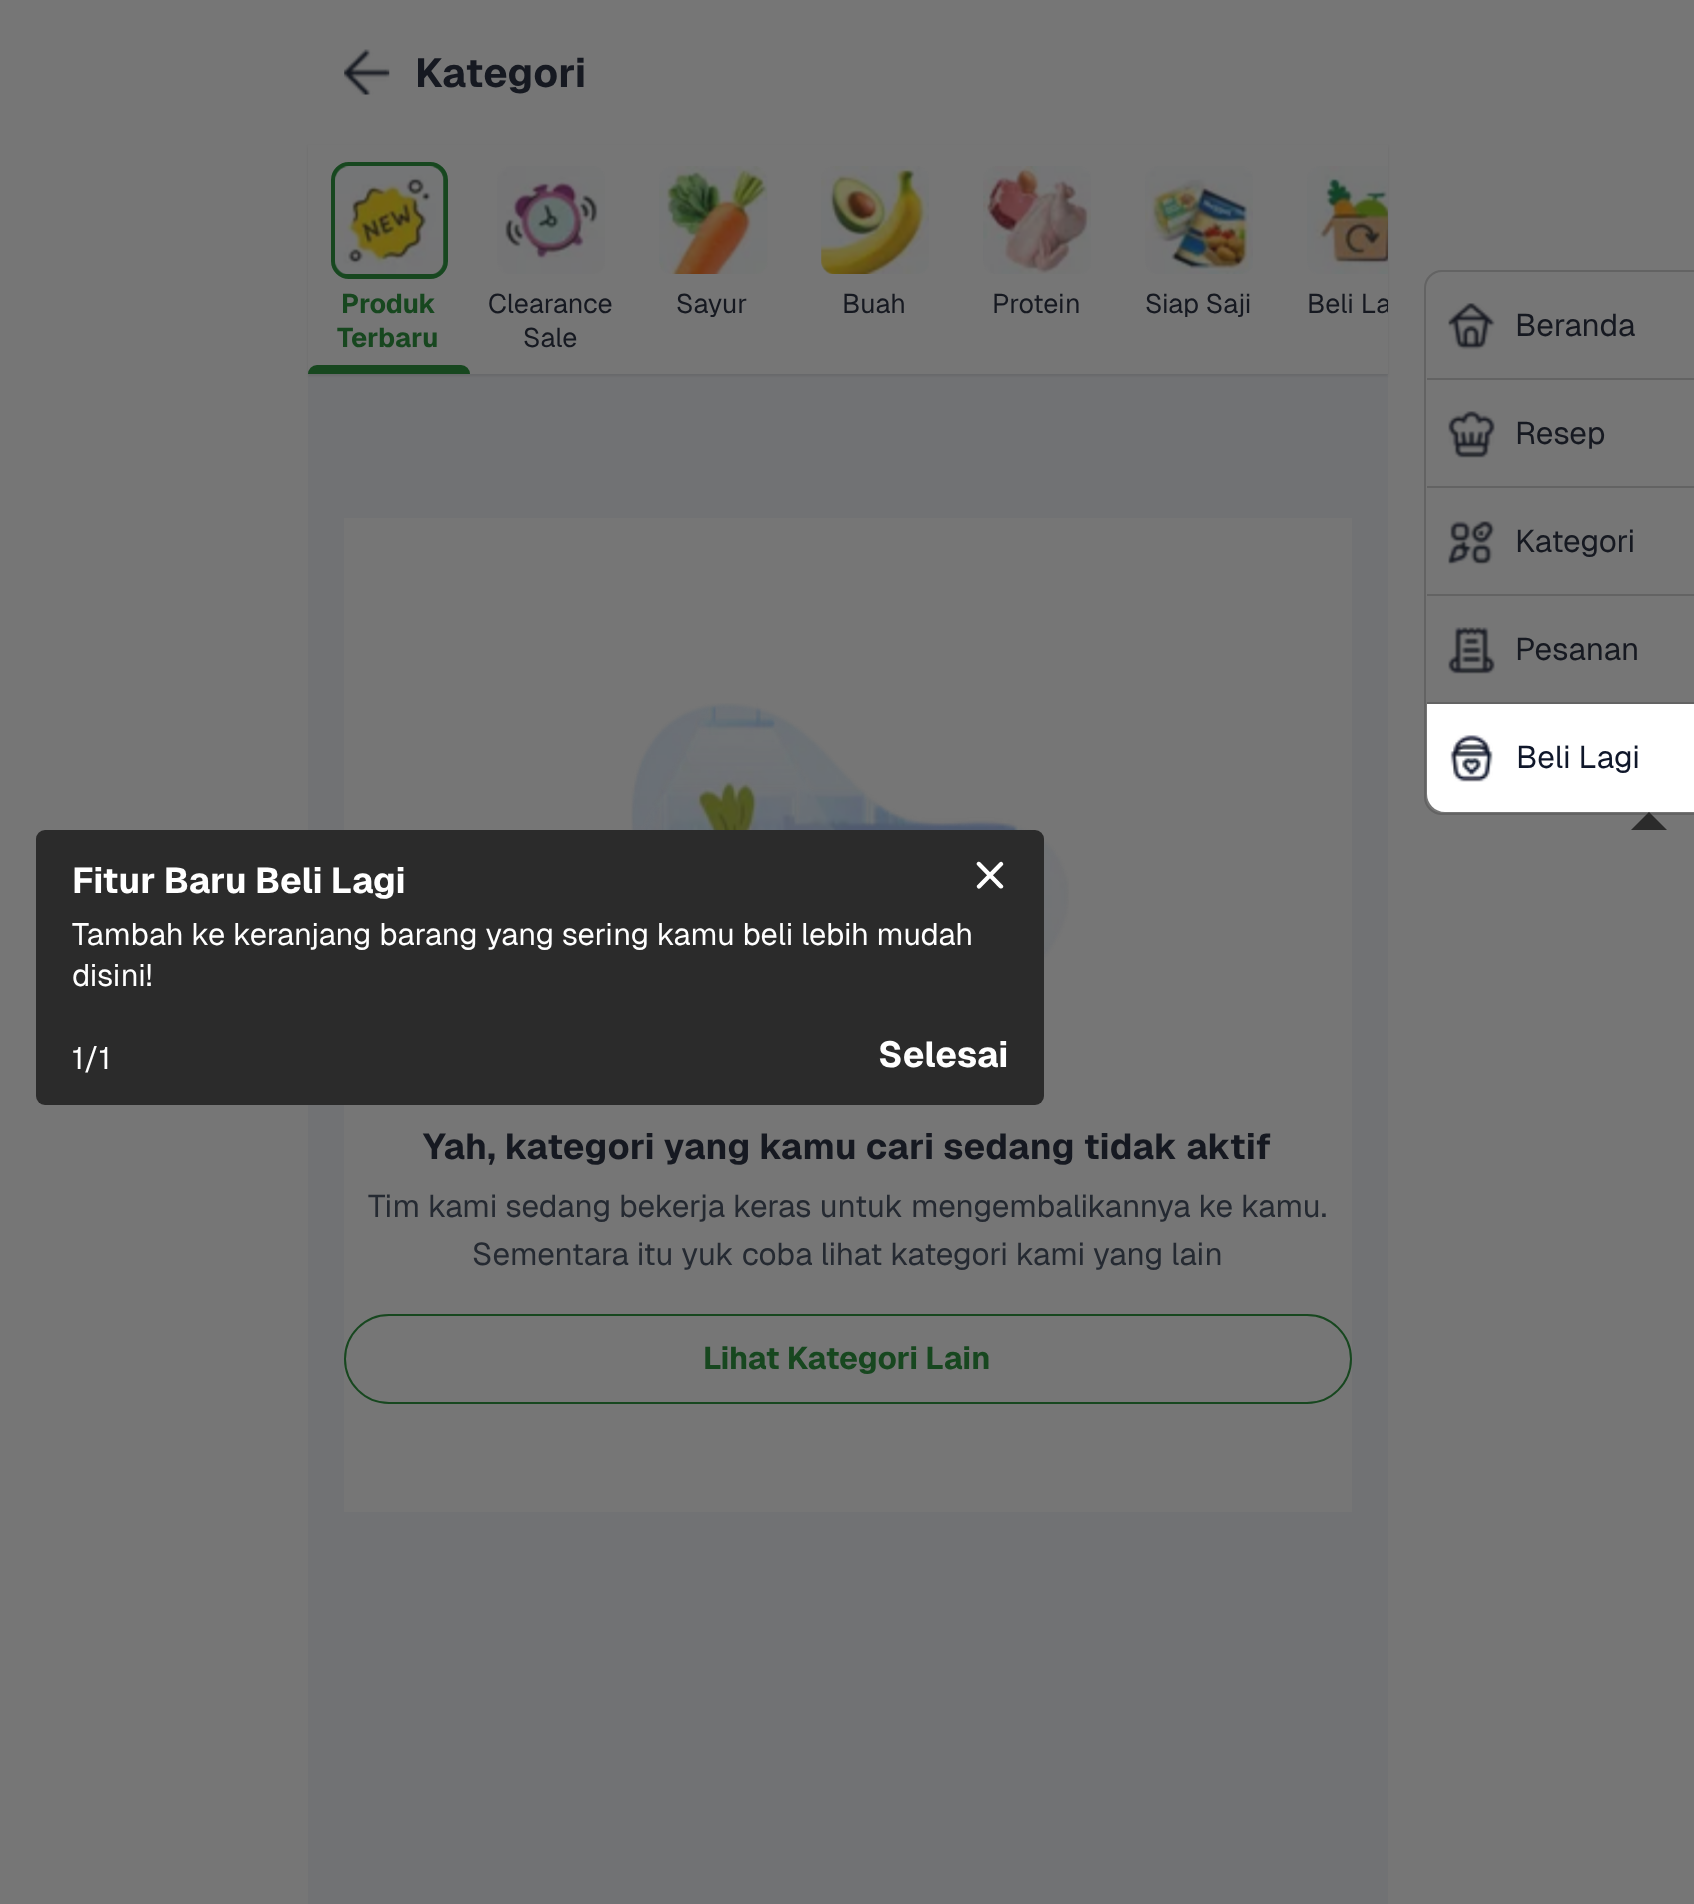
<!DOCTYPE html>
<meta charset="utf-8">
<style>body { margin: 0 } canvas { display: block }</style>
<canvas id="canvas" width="1694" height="1904"></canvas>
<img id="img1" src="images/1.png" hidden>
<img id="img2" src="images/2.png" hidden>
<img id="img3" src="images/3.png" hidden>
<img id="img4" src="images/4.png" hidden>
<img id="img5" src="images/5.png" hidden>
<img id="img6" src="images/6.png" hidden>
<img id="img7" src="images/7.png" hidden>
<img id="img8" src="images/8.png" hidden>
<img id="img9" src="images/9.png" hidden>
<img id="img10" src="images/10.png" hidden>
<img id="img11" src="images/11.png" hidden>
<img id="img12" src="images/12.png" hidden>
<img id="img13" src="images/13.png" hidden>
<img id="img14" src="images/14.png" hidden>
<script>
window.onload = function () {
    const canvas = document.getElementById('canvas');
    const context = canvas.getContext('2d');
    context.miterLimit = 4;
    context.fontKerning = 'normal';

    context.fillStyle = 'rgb(118, 118, 118)';
    context.fillRect(0, 0, 1694, 1904);
    context.drawImage(document.getElementById('img1'), 344, 49, 46, 46);
    context.fillStyle = 'rgb(113, 114, 116)';
    context.fillRect(308, 374, 1080, 1530);
    context.fillStyle = 'rgba(16, 16, 16, 0.1)';
    context.filter = 'blur(1px)';
    context.beginPath();
    context.rect(308, 146, 1080, 230);
    context.fill();
    context.filter = 'none';
    context.fillStyle = 'rgb(118, 118, 118)';
    context.fillRect(308, 145, 1080, 229);
    context.beginPath();
    context.roundRect(333.5, 164.5, 112, 112, 15.5);
    context.strokeStyle = 'rgb(23, 71, 31)';
    context.lineWidth = 5;
    context.stroke();
    context.drawImage(document.getElementById('img2'), 335, 166, 109, 108);
    context.drawImage(document.getElementById('img3'), 497, 166, 108, 108);
    context.drawImage(document.getElementById('img4'), 659, 166, 109, 108);
    context.drawImage(document.getElementById('img5'), 821, 166, 108, 108);
    context.drawImage(document.getElementById('img6'), 983, 166, 108, 108);
    context.drawImage(document.getElementById('img7'), 1145, 166, 108, 108);
    context.drawImage(document.getElementById('img8'), 1307, 166, 81, 108);
    context.fillStyle = 'rgb(23, 71, 31)';
    context.beginPath();
    context.roundRect(308, 365, 162, 9, [9, 9, 0, 0]);
    context.fill();
    context.fillStyle = 'rgb(118, 118, 118)';
    context.fillRect(344, 518, 1008, 994);
    context.drawImage(document.getElementById('img9'), 631, 703, 438, 257);
    context.beginPath();
    context.roundRect(345, 1315, 1006, 88, 44);
    context.lineWidth = 2;
    context.stroke();
    context.beginPath();
    context.roundRect(1425, 271, 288, 543, 17);
    context.strokeStyle = 'rgb(99, 99, 99)';
    context.stroke();
    context.fillStyle = 'rgb(99, 99, 99)';
    context.fillRect(1427, 378, 267, 2);
    context.drawImage(document.getElementById('img10'), 1448, 303, 47, 47);
    context.fillRect(1427, 486, 267, 2);
    context.drawImage(document.getElementById('img11'), 1448, 411, 47, 47);
    context.fillRect(1427, 594, 267, 2);
    context.drawImage(document.getElementById('img12'), 1448, 521, 47, 44);
    context.fillRect(1427, 702, 267, 2);
    context.drawImage(document.getElementById('img13'), 1448, 627, 47, 47);
    context.fillStyle = 'rgb(255, 255, 255)';
    context.beginPath();
    context.moveTo(1427, 704);
    context.lineTo(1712, 704);
    context.lineTo(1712, 794);
    context.bezierCurveTo(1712, 804, 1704, 812, 1694, 812);
    context.lineTo(1445, 812);
    context.bezierCurveTo(1435, 812, 1427, 804, 1427, 794);
    context.closePath();
    context.fill();
    context.drawImage(document.getElementById('img14'), 1450, 735, 43, 47);
    context.fillStyle = 'rgb(43, 43, 43)';
    context.beginPath();
    context.moveTo(1667, 830);
    context.lineTo(1631, 830);
    context.lineTo(1649, 812);
    context.closePath();
    context.fill();
    context.beginPath();
    context.roundRect(36, 830, 1008, 275, 9);
    context.fill();
    context.fillStyle = 'rgb(255, 255, 255)';
    context.beginPath();
    context.moveTo(980.5, 862.5);
    context.lineTo(1003, 885.5);
    context.bezierCurveTo(1004, 887, 1002.5, 889, 1000.5, 888.5);
    context.bezierCurveTo(999, 888, 996, 884.5, 996, 884.5);
    context.lineTo(977.5, 865.5);
    context.bezierCurveTo(975, 863.5, 978.5, 860.5, 980.5, 862.5);
    context.closePath();
    context.fill();
    context.beginPath();
    context.moveTo(1002.5, 862.5);
    context.bezierCurveTo(1003.5, 863.5, 1003.5, 865, 1002.5, 865.5);
    context.lineTo(980.5, 888);
    context.bezierCurveTo(979.5, 889, 978, 889, 977.5, 888);
    context.bezierCurveTo(976.5, 887, 976.5, 885.5, 977.5, 885);
    context.lineTo(999.5, 862.5);
    context.bezierCurveTo(1000.5, 861.5, 1002, 861.5, 1002.5, 862.5);
    context.closePath();
    context.fill();
    context.letterSpacing = '0.35px';
    context.font = 'bold 40.5px Geist';
    context.fillStyle = 'rgb(22, 25, 33)';
    context.fillText('Kategori', 415, 87);
    context.letterSpacing = '0px';
    context.font = 'bold 27px Geist';
    context.fillStyle = 'rgb(23, 71, 31)';
    context.fillText('Produk', 341, 313);
    context.fillText('Terbaru', 337, 347);
    context.font = '27px Geist';
    context.fillStyle = 'rgb(22, 25, 33)';
    context.fillText('Clearance', 488, 313);
    context.fillText('Sale', 523, 347);
    context.fillText('Sayur', 676, 313);
    context.fillText('Buah', 842, 313);
    context.fillText('Protein', 992, 313);
    context.fillText('Siap Saji', 1145, 313);
    context.save();
    context.beginPath();
    context.rect(1307, 288, 81, 34);
    context.clip();
    context.fillText('Beli La', 1307, 313);
    context.restore();
    context.letterSpacing = '0.35px';
    context.font = 'bold 36px Geist';
    context.fillText('Yah, kategori yang kamu cari sedang tidak aktif', 423, 1159);
    context.letterSpacing = '0px';
    context.font = '31.5px Geist';
    context.fillStyle = 'rgb(37, 42, 50)';
    context.fillText('Tim kami sedang bekerja keras untuk mengembalikannya ke kamu.', 368, 1217);
    context.fillText('Sementara itu yuk coba lihat kategori kami yang lain', 472, 1265);
    context.font = 'bold 31.5px Geist';
    context.fillStyle = 'rgb(23, 71, 31)';
    context.fillText('Lihat Kategori Lain', 703, 1369);
    context.font = '31.5px Geist';
    context.fillStyle = 'rgb(22, 25, 33)';
    context.fillText('Beranda', 1515, 336);
    context.fillText('Resep', 1515, 444);
    context.fillText('Kategori', 1515, 552);
    context.fillText('Pesanan', 1515, 660);
    context.fillStyle = 'rgb(15, 23, 42)';
    context.fillText('Beli Lagi', 1516, 768);
    context.font = 'bold 36px Geist';
    context.fillStyle = 'rgb(255, 255, 255)';
    context.fillText('Fitur Baru Beli Lagi', 72, 893);
    context.font = '30.85px Geist';
    context.fillText('Tambah ke keranjang barang yang sering kamu beli lebih mudah', 72, 945);
    context.fillText('disini!', 72, 986);
    context.fillText('1', 72, 1069);
    context.fillText('/1', 84, 1069);
    context.font = 'bold 36px Geist';
    context.fillText('Selesai', 878, 1067);
};
</script>
